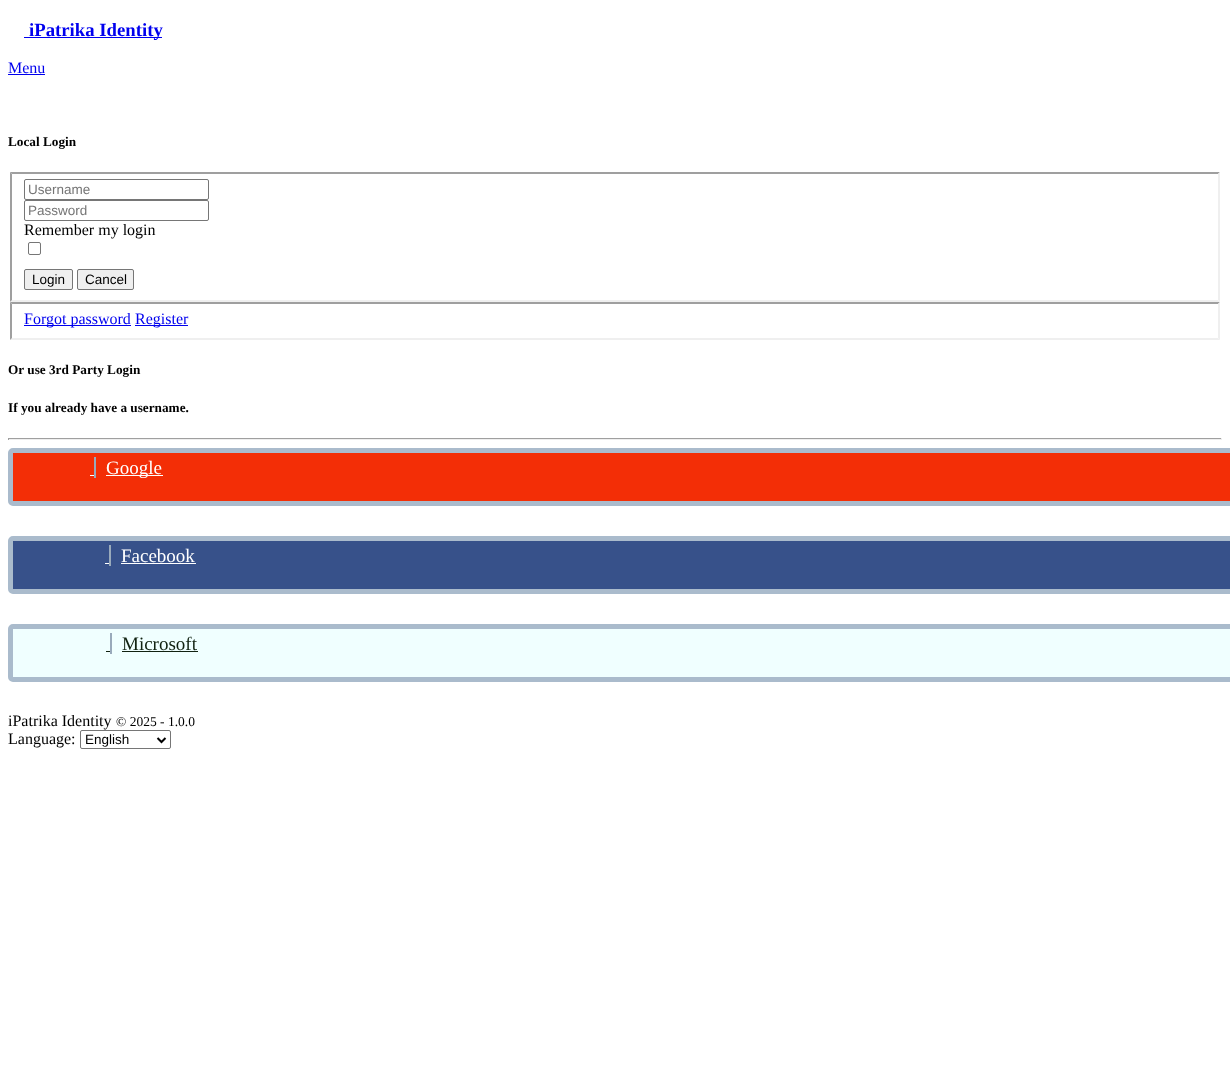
<!DOCTYPE html>
<meta charset="utf-8">
<style>body { margin: 0 } canvas { display: block }</style>
<canvas id="canvas" width="1230" height="1092"></canvas>
<script>
window.onload = function () {
    const canvas = document.getElementById('canvas');
    const context = canvas.getContext('2d');
    context.miterLimit = 4;
    context.fontKerning = 'normal';

    context.fillStyle = 'rgb(255, 255, 255)';
    context.fillRect(0, 0, 1230, 1092);
    context.fillStyle = 'rgb(0, 0, 238)';
    context.fillRect(24, 37, 138, 1);
    context.fillRect(8, 74, 37, 1);
    context.fillStyle = 'rgb(159, 159, 159)';
    context.beginPath();
    context.moveTo(10, 172);
    context.lineTo(1220, 172);
    context.lineTo(1218, 174);
    context.lineTo(12, 174);
    context.closePath();
    context.fill();
    context.fillStyle = 'rgb(239, 239, 239)';
    context.beginPath();
    context.moveTo(1220, 172);
    context.lineTo(1220, 302);
    context.lineTo(1218, 300);
    context.lineTo(1218, 174);
    context.closePath();
    context.fill();
    context.beginPath();
    context.moveTo(1220, 302);
    context.lineTo(10, 302);
    context.lineTo(12, 300);
    context.lineTo(1218, 300);
    context.closePath();
    context.fill();
    context.fillStyle = 'rgb(159, 159, 159)';
    context.beginPath();
    context.moveTo(10, 302);
    context.lineTo(10, 172);
    context.lineTo(12, 174);
    context.lineTo(12, 300);
    context.closePath();
    context.fill();
    context.beginPath();
    context.roundRect(24.5, 179.5, 184, 20, 1.5);
    context.strokeStyle = 'rgb(118, 118, 118)';
    context.stroke();
    context.beginPath();
    context.roundRect(24.5, 200.5, 184, 20, 1.5);
    context.stroke();
    context.beginPath();
    context.roundRect(28.5, 242.5, 12, 12, 1.5);
    context.stroke();
    context.fillStyle = 'rgb(239, 239, 239)';
    context.beginPath();
    context.roundRect(24.5, 269.5, 48, 20, 1.5);
    context.fill();
    context.stroke();
    context.beginPath();
    context.roundRect(77.5, 269.5, 56, 20, 1.5);
    context.fill();
    context.stroke();
    context.fillStyle = 'rgb(159, 159, 159)';
    context.beginPath();
    context.moveTo(10, 302);
    context.lineTo(1220, 302);
    context.lineTo(1218, 304);
    context.lineTo(12, 304);
    context.closePath();
    context.fill();
    context.fillStyle = 'rgb(239, 239, 239)';
    context.beginPath();
    context.moveTo(1220, 302);
    context.lineTo(1220, 340);
    context.lineTo(1218, 338);
    context.lineTo(1218, 304);
    context.closePath();
    context.fill();
    context.beginPath();
    context.moveTo(1220, 340);
    context.lineTo(10, 340);
    context.lineTo(12, 338);
    context.lineTo(1218, 338);
    context.closePath();
    context.fill();
    context.fillStyle = 'rgb(159, 159, 159)';
    context.beginPath();
    context.moveTo(10, 340);
    context.lineTo(10, 302);
    context.lineTo(12, 304);
    context.lineTo(12, 338);
    context.closePath();
    context.fill();
    context.fillStyle = 'rgb(0, 0, 238)';
    context.fillRect(24, 325, 107, 1);
    context.fillRect(135, 325, 53, 1);
    context.fillStyle = 'rgb(159, 159, 159)';
    context.fillRect(8, 438, 1214, 1);
    context.fillStyle = 'rgb(238, 238, 238)';
    context.fillRect(1221, 438, 1, 2);
    context.fillRect(8, 439, 1214, 1);
    context.fillStyle = 'rgb(159, 159, 159)';
    context.fillRect(8, 438, 1, 2);
    context.fillStyle = 'rgb(243, 46, 6)';
    context.beginPath();
    context.roundRect(10.5, 450.5, 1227, 53, 2.5);
    context.fill();
    context.strokeStyle = 'rgb(170, 187, 204)';
    context.lineWidth = 5;
    context.stroke();
    context.fillStyle = 'rgb(255, 255, 255)';
    context.fillRect(90, 475, 4, 1);
    context.fillStyle = 'rgb(153, 170, 187)';
    context.fillRect(94, 457, 2, 21);
    context.fillStyle = 'rgb(255, 255, 255)';
    context.fillRect(106, 475, 57, 1);
    context.fillStyle = 'rgb(55, 81, 138)';
    context.beginPath();
    context.roundRect(10.5, 538.5, 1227, 53, 2.5);
    context.fill();
    context.stroke();
    context.fillStyle = 'rgb(153, 170, 187)';
    context.fillRect(109, 545, 2, 21);
    context.fillStyle = 'rgb(255, 255, 255)';
    context.fillRect(121, 563, 75, 1);
    context.fillRect(105, 563, 4, 1);
    context.fillStyle = 'rgb(240, 255, 255)';
    context.beginPath();
    context.roundRect(10.5, 626.5, 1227, 53, 2.5);
    context.fill();
    context.stroke();
    context.fillStyle = 'rgb(153, 170, 187)';
    context.fillRect(110, 633, 2, 21);
    context.fillStyle = 'rgb(17, 34, 17)';
    context.fillRect(122, 651, 76, 1);
    context.fillRect(106, 651, 4, 1);
    context.beginPath();
    context.roundRect(80.5, 730.5, 90, 18, 1.5);
    context.strokeStyle = 'rgb(118, 118, 118)';
    context.lineWidth = 1;
    context.stroke();
    context.beginPath();
    context.moveTo(157.5, 738);
    context.lineTo(161.5, 742);
    context.lineTo(165.5, 738);
    context.strokeStyle = 'rgb(0, 0, 0)';
    context.lineWidth = 2;
    context.stroke();
    context.font = 'bold 18.75px Liberation Serif';
    context.fillStyle = 'rgb(0, 0, 238)';
    context.fillText('iPatrika Identity', 29, 36);
    context.font = '16px Liberation Serif';
    context.fillText('Menu', 8, 73);
    context.font = 'bold 13.25px Liberation Serif';
    context.fillStyle = 'rgb(0, 0, 0)';
    context.fillText('Local Login', 8, 146);
    context.font = '13.5px Liberation Sans';
    context.fillStyle = 'rgb(117, 117, 117)';
    context.fillText('Username', 28, 194);
    context.fillText('Password', 28, 215);
    context.font = '16px Liberation Serif';
    context.fillStyle = 'rgb(0, 0, 0)';
    context.fillText('Remember my login', 24, 235);
    context.font = '13.5px Liberation Sans';
    context.fillText('Login', 32, 284);
    context.fillText('Cancel', 85, 284);
    context.font = '16px Liberation Serif';
    context.fillStyle = 'rgb(0, 0, 238)';
    context.fillText('Forgot password', 24, 324);
    context.fillText('Register', 135, 324);
    context.font = 'bold 13.25px Liberation Serif';
    context.fillStyle = 'rgb(0, 0, 0)';
    context.fillText('Or use 3rd Party Login', 8, 374);
    context.fillText('If you already have a username.', 8, 412);
    context.font = '19px Liberation Serif';
    context.fillStyle = 'rgb(255, 255, 255)';
    context.fillText('Google', 106, 474);
    context.fillText('Facebook', 121, 562);
    context.fillStyle = 'rgb(17, 34, 17)';
    context.fillText('Microsoft', 122, 650);
    context.font = '16px Liberation Serif';
    context.fillStyle = 'rgb(0, 0, 0)';
    context.fillText('iPatrika Identity', 8, 726);
    context.font = '13.5px Liberation Serif';
    context.fillText('© 2025 - 1.0.0', 116, 726);
    context.font = '16px Liberation Serif';
    context.fillText('Language:', 8, 744);
    context.font = '13.5px Liberation Sans';
    context.fillText('English', 85, 744);
};
</script>
